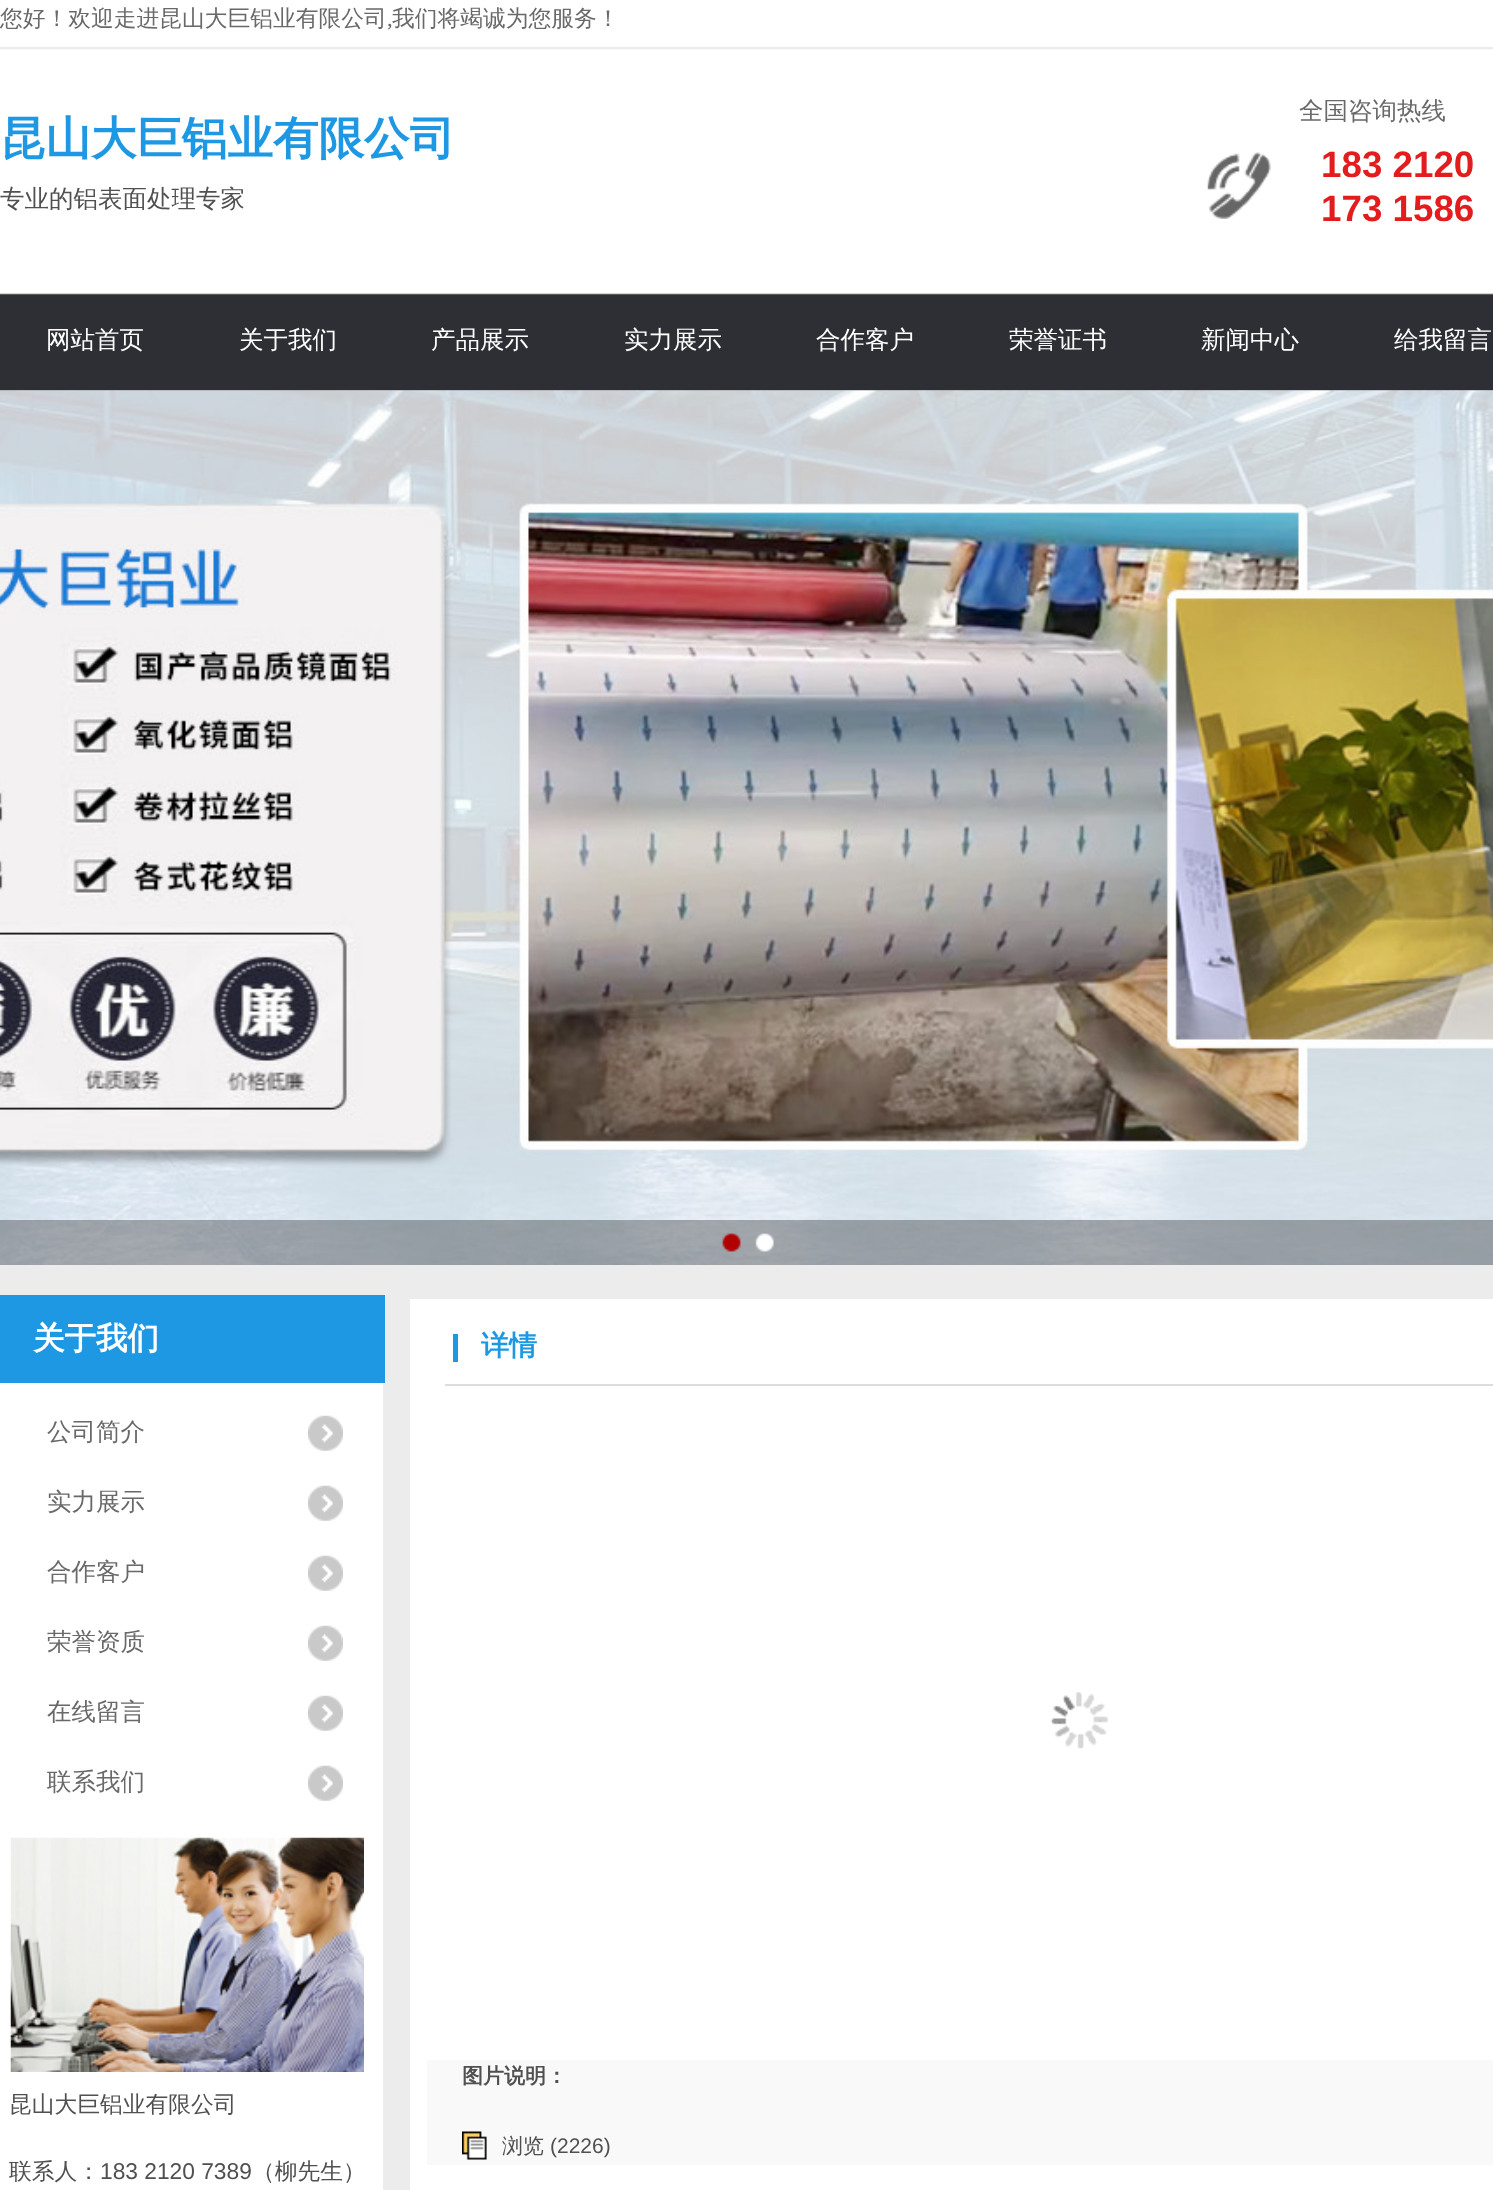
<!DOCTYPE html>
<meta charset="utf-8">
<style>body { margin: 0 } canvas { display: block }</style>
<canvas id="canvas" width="1493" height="2190"></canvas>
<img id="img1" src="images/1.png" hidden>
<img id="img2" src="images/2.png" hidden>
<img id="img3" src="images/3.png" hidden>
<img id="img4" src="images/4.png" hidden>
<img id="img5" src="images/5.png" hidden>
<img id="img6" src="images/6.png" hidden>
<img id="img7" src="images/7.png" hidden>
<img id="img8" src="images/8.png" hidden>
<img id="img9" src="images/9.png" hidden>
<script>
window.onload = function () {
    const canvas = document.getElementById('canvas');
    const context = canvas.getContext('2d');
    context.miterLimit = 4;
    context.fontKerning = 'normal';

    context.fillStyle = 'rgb(236, 236, 236)';
    context.fillRect(0, 0, 1493, 2190);
    context.drawImage(document.getElementById('img1'), 0, 0, 1493, 390);
    context.fillStyle = 'rgb(154, 154, 155)';
    context.fillRect(0, 390, 1493, 1);
    context.drawImage(document.getElementById('img2'), 1207, 152, 64, 67);
    context.drawImage(document.getElementById('img3'), 0, 390, 1493, 875);
    context.fillStyle = 'rgba(0, 0, 0, 0.3)';
    context.fillRect(0, 1220, 1493, 45);
    context.drawImage(document.getElementById('img4'), 722, 1233, 19, 19);
    context.drawImage(document.getElementById('img5'), 755, 1233, 19, 19);
    context.fillStyle = 'rgb(31, 152, 228)';
    context.fillRect(0, 1295, 385, 88);
    context.fillStyle = 'rgb(255, 255, 255)';
    context.fillRect(410, 1299, 1083, 891);
    context.fillStyle = 'rgb(31, 152, 228)';
    context.fillRect(453, 1334, 5, 28);
    context.fillStyle = 'rgb(255, 255, 255)';
    context.fillRect(0, 1383, 383, 807);
    context.fillStyle = 'rgb(221, 221, 221)';
    context.fillRect(445, 1384, 1048, 2);
    context.drawImage(document.getElementById('img6'), 308, 1415, 35, 36);
    context.drawImage(document.getElementById('img6'), 308, 1485, 35, 36);
    context.drawImage(document.getElementById('img6'), 308, 1555, 35, 36);
    context.drawImage(document.getElementById('img6'), 308, 1625, 35, 36);
    context.drawImage(document.getElementById('img6'), 308, 1695, 35, 36);
    context.drawImage(document.getElementById('img6'), 308, 1765, 35, 36);
    context.drawImage(document.getElementById('img7'), 10, 1837, 354, 235);
    context.drawImage(document.getElementById('img8'), 1051, 1692, 57, 57);
    context.fillStyle = 'rgb(249, 249, 249)';
    context.fillRect(427, 2060, 1066, 105);
    context.drawImage(document.getElementById('img9'), 462, 2131, 25, 29);
    context.font = '500 22.75px WenQuanYi Zen Hei';
    context.fillStyle = 'rgb(105, 105, 105)';
    context.fillText('您好！欢迎走进昆山大巨铝业有限公司', 0, 26);
    context.font = '22.75px Liberation Serif';
    context.fillText(',', 387, 26);
    context.font = '500 22.75px WenQuanYi Zen Hei';
    context.fillText('我们将竭诚为您服务！', 392, 26);
    context.font = '500 24.5px WenQuanYi Zen Hei';
    context.fillText('全国咨询热线', 1299, 119);
    context.font = 'bold 45.5px WenQuanYi Zen Hei';
    context.fillStyle = 'rgb(31, 152, 228)';
    context.fillText('昆山大巨铝业有限公司', 0, 154);
    context.font = '500 24.5px WenQuanYi Zen Hei';
    context.fillStyle = 'rgb(80, 80, 80)';
    context.fillText('专业的铝表面处理专家', 0, 207);
    context.font = 'bold 36.75px Liberation Sans';
    context.fillStyle = 'rgb(227, 29, 30)';
    context.fillText('183 2120', 1321, 177);
    context.fillText('173 1586', 1321, 221);
    context.font = '500 24.5px WenQuanYi Zen Hei';
    context.fillStyle = 'rgb(255, 255, 255)';
    context.fillText('网站首页', 46, 348);
    context.fillText('关于我们', 239, 348);
    context.fillText('产品展示', 431, 348);
    context.fillText('实力展示', 624, 348);
    context.fillText('合作客户', 816, 348);
    context.fillText('荣誉证书', 1009, 348);
    context.fillText('新闻中心', 1201, 348);
    context.fillText('给我留言', 1394, 348);
    context.font = 'bold 31.5px WenQuanYi Zen Hei';
    context.fillText('关于我们', 33, 1349);
    context.font = 'bold 28px WenQuanYi Zen Hei';
    context.fillStyle = 'rgb(31, 152, 228)';
    context.fillText('详情', 481, 1355);
    context.font = '500 24.5px WenQuanYi Zen Hei';
    context.fillStyle = 'rgb(105, 105, 105)';
    context.fillText('公司简介', 47, 1440);
    context.fillText('实力展示', 47, 1510);
    context.fillText('合作客户', 47, 1580);
    context.fillText('荣誉资质', 47, 1650);
    context.fillText('在线留言', 47, 1720);
    context.fillText('联系我们', 47, 1790);
    context.font = '500 22.75px WenQuanYi Zen Hei';
    context.fillStyle = 'rgb(80, 80, 80)';
    context.fillText('昆山大巨铝业有限公司', 9, 2112);
    context.fillText('联系人：', 9, 2179);
    context.font = '22.75px Liberation Sans';
    context.fillText('183 2120 7389', 100, 2179);
    context.font = '500 22.75px WenQuanYi Zen Hei';
    context.fillText('（柳先生）', 252, 2179);
    context.font = 'bold 21px WenQuanYi Zen Hei';
    context.fillText('图片说明：', 462, 2083);
    context.font = '500 21px WenQuanYi Zen Hei';
    context.fillText('浏览', 502, 2153);
    context.font = '21px Liberation Sans';
    context.fillText('(2226)', 550, 2153);
};
</script>
